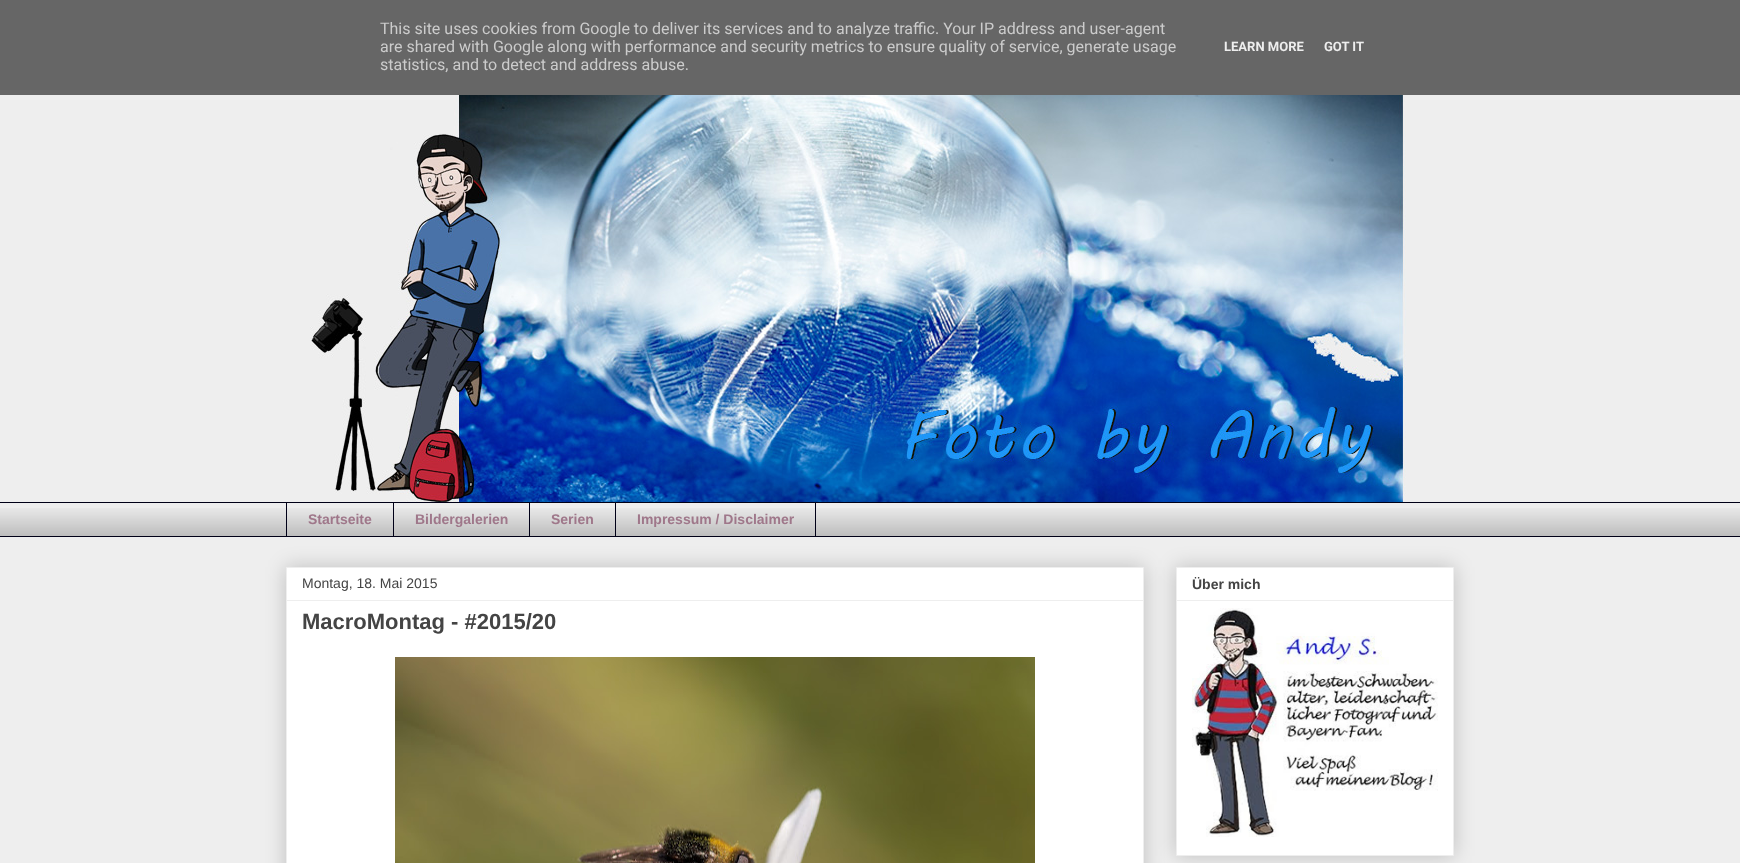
<!DOCTYPE html>
<meta charset="utf-8">
<style>body { margin: 0 } canvas { display: block }</style>
<canvas id="canvas" width="1740" height="863"></canvas>
<img id="img1" src="images/1.png" hidden>
<img id="img2" src="images/2.png" hidden>
<img id="img3" src="images/3.png" hidden>
<img id="img4" src="images/4.png" hidden>
<script>
window.onload = function () {
    const canvas = document.getElementById('canvas');
    const context = canvas.getContext('2d');
    context.miterLimit = 4;
    context.fontKerning = 'normal';

    context.fillStyle = 'rgb(238, 238, 238)';
    context.fillRect(0, 0, 1740, 863);
    context.fillStyle = 'rgb(102, 102, 102)';
    context.fillRect(0, 0, 1740, 95);
    context.drawImage(document.getElementById('img1'), 310, 95, 1096, 407);
    context.drawImage(document.getElementById('img2'), 0, 508, 1740, 28);
    context.fillStyle = 'rgb(0, 0, 23)';
    context.fillRect(0, 502, 1740, 1);
    context.fillRect(286, 502, 1, 35);
    context.fillRect(393, 502, 1, 35);
    context.fillRect(529, 502, 1, 35);
    context.strokeStyle = 'rgb(0, 0, 23)';
    context.strokeRect(615.5, 502.5, 200, 34);
    context.fillRect(0, 536, 1740, 1);
    context.fillStyle = 'rgba(0, 0, 0, 0.2)';
    context.filter = 'blur(10px)';
    context.beginPath();
    context.rect(286, 567, 858, 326);
    context.fill();
    context.filter = 'none';
    context.fillStyle = 'rgb(255, 255, 255)';
    context.beginPath();
    context.rect(286.5, 567.5, 857, 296);
    context.fill();
    context.strokeStyle = 'rgb(238, 238, 238)';
    context.stroke();
    context.fillStyle = 'rgb(238, 238, 238)';
    context.fillRect(287, 600, 856, 1);
    context.drawImage(document.getElementById('img3'), 395, 657, 640, 206);
    context.fillStyle = 'rgba(0, 0, 0, 0.2)';
    context.filter = 'blur(10px)';
    context.beginPath();
    context.rect(1176, 567, 278, 289);
    context.fill();
    context.filter = 'none';
    context.fillStyle = 'rgb(255, 255, 255)';
    context.beginPath();
    context.rect(1176.5, 567.5, 277, 288);
    context.fill();
    context.stroke();
    context.fillStyle = 'rgb(238, 238, 238)';
    context.fillRect(1177, 600, 276, 1);
    context.drawImage(document.getElementById('img4'), 1192, 608, 246, 229);
    context.font = '16px Roboto';
    context.fillStyle = 'rgb(204, 204, 204)';
    context.fillText('This site uses cookies from Google to deliver its services and to analyze traffic. Your IP address and user-agent', 380, 34);
    context.fillText('are shared with Google along with performance and security metrics to ensure quality of service, generate usage', 380, 52);
    context.fillText('statistics, and to detect and address abuse.', 380, 70);
    context.font = 'bold 13px Roboto';
    context.fillStyle = 'rgb(238, 238, 238)';
    context.fillText('LEARN MORE', 1224, 51);
    context.fillText('GOT IT', 1324, 51);
    context.font = 'bold 14px Liberation Sans';
    context.fillStyle = 'rgb(159, 119, 138)';
    context.fillText('Startseite', 308, 524);
    context.fillText('Bildergalerien', 415, 524);
    context.fillText('Serien', 551, 524);
    context.fillText('Impressum / Disclaimer', 637, 524);
    context.font = '14px Liberation Sans';
    context.fillStyle = 'rgb(68, 68, 68)';
    context.fillText('Montag, 18. Mai 2015', 302, 588);
    context.font = 'bold 22px Liberation Sans';
    context.fillText('MacroMontag - #2015/20', 302, 629);
    context.font = 'bold 14px Liberation Sans';
    context.fillText('Über mich', 1192, 589);
};
</script>
